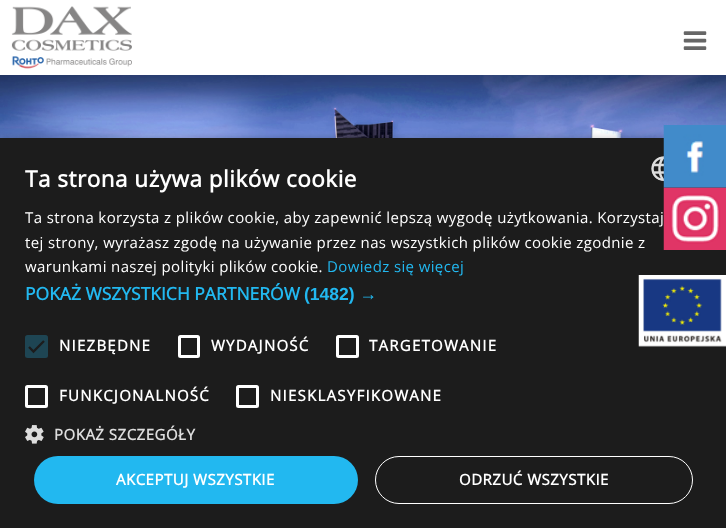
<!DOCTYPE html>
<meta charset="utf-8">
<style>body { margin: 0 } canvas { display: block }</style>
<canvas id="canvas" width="726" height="528"></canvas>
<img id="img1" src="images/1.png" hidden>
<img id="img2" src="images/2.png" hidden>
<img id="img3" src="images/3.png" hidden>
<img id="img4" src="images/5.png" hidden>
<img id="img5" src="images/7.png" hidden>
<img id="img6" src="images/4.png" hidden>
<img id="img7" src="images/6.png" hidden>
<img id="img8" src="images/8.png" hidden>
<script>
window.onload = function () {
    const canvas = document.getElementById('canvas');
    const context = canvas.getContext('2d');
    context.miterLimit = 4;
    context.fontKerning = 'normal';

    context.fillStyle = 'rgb(255, 255, 255)';
    context.fillRect(0, 0, 726, 528);
    context.drawImage(document.getElementById('img1'), 11, 6, 121, 63);
    context.drawImage(document.getElementById('img2'), 683, 31, 24, 19);
    context.drawImage(document.getElementById('img3'), 0, 75, 726, 63);
    context.fillStyle = 'rgba(0, 0, 0, 0.35)';
    context.filter = 'blur(5px)';
    context.beginPath();
    context.rect(1, 140, 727, 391);
    context.fill();
    context.filter = 'none';
    context.fillStyle = 'rgb(28, 28, 28)';
    context.fillRect(0, 138, 726, 390);
    context.drawImage(document.getElementById('img4'), 651, 156, 13, 25);
    context.drawImage(document.getElementById('img5'), 663, 187, 63, 63);
    context.drawImage(document.getElementById('img6'), 663, 125, 63, 63);
    context.fillStyle = 'rgb(30, 69, 83)';
    context.beginPath();
    context.roundRect(25, 335, 23, 23, 2.5);
    context.fill();
    context.beginPath();
    context.moveTo(29, 347);
    context.lineTo(33.5, 351.5);
    context.lineTo(44, 341);
    context.strokeStyle = 'rgb(28, 28, 28)';
    context.lineWidth = 2.3;
    context.stroke();
    context.beginPath();
    context.roundRect(179.5, 336.5, 19, 20, 1);
    context.strokeStyle = 'rgb(255, 255, 255)';
    context.lineWidth = 3;
    context.stroke();
    context.beginPath();
    context.roundRect(337.5, 336.5, 20, 20, 1);
    context.stroke();
    context.beginPath();
    context.roundRect(26.5, 386.5, 20, 20, 1);
    context.stroke();
    context.beginPath();
    context.roundRect(237.5, 386.5, 20, 20, 1);
    context.stroke();
    context.drawImage(document.getElementById('img7'), 25, 425, 19, 19);
    context.fillStyle = 'rgb(34, 184, 240)';
    context.beginPath();
    context.roundRect(34, 456, 324, 48, 24);
    context.fill();
    context.beginPath();
    context.roundRect(375.5, 456.5, 317, 47, 23.5);
    context.lineWidth = 1;
    context.stroke();
    context.drawImage(document.getElementById('img8'), 638, 275, 88, 72);
    context.letterSpacing = '0.5px';
    context.font = 'bold 22.5px Open Sans';
    context.fillStyle = 'rgb(255, 255, 255)';
    context.fillText('Ta strona używa plików cookie', 25, 187);
    context.letterSpacing = '0.38px';
    context.font = '15px Open Sans';
    context.fillText('Ta strona korzysta z plików cookie, aby zapewnić lepszą wygodę użytkowania. Korzystaj', 25, 223);
    context.fillText('tej strony, wyrażasz zgodę na używanie przez nas wszystkich plików cookie zgodnie z', 25, 248);
    context.fillText('warunkami naszej polityki plików cookie.', 25, 272);
    context.fillStyle = 'rgb(34, 184, 240)';
    context.fillText('Dowiedz się więcej', 327, 272);
    context.letterSpacing = '0px';
    context.font = 'bold 17.5px Open Sans';
    context.fillText('POKAŻ WSZYSTKICH PARTNERÓW', 25, 300);
    context.font = 'bold 17.5px Liberation Sans';
    context.fillText('(1482) →', 304, 300);
    context.letterSpacing = '1.25px';
    context.font = 'bold 15px Open Sans';
    context.fillStyle = 'rgb(255, 255, 255)';
    context.fillText('NIEZBĘDNE', 59, 351);
    context.fillText('WYDAJNOŚĆ', 211, 351);
    context.fillText('TARGETOWANIE', 369, 351);
    context.fillText('FUNKCJONALNOŚĆ', 59, 401);
    context.fillText('NIESKLASYFIKOWANE', 270, 401);
    context.letterSpacing = '0.5px';
    context.fillStyle = 'rgb(221, 221, 221)';
    context.fillText('POKAŻ SZCZEGÓŁY', 54, 440);
    context.fillStyle = 'rgb(255, 255, 255)';
    context.fillText('AKCEPTUJ WSZYSTKIE', 116, 485);
    context.fillText('ODRZUĆ WSZYSTKIE', 459, 485);
};
</script>
